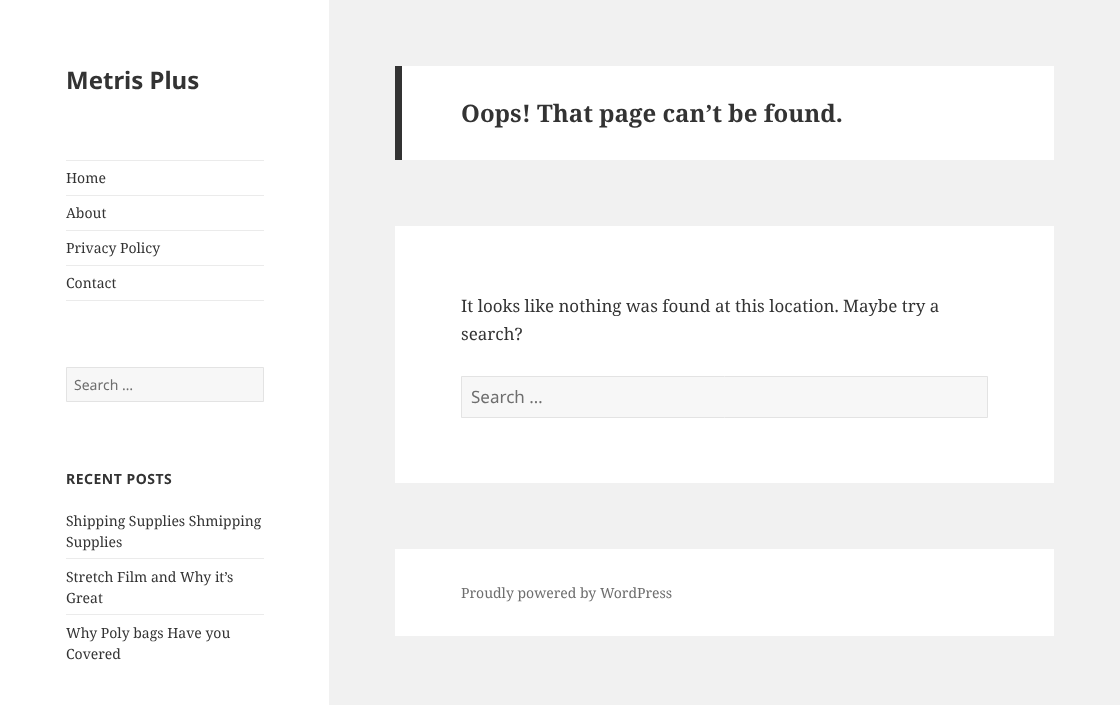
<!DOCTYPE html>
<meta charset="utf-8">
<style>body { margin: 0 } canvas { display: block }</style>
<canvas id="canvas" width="1120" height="705"></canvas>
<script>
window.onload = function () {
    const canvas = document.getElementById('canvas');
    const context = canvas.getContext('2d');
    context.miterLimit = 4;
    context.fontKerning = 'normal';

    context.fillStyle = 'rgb(241, 241, 241)';
    context.fillRect(0, 0, 1120, 705);
    context.fillStyle = 'rgb(255, 255, 255)';
    context.fillRect(0, 0, 329, 705);
    context.fillStyle = 'rgb(235, 235, 235)';
    context.fillRect(66, 160, 198, 1);
    context.fillRect(66, 300, 198, 1);
    context.fillRect(66, 195, 198, 1);
    context.fillRect(66, 230, 198, 1);
    context.fillRect(66, 265, 198, 1);
    context.fillStyle = 'rgb(247, 247, 247)';
    context.beginPath();
    context.rect(66.5, 367.5, 197, 34);
    context.fill();
    context.strokeStyle = 'rgb(227, 227, 227)';
    context.stroke();
    context.fillStyle = 'rgb(235, 235, 235)';
    context.fillRect(66, 558, 198, 1);
    context.fillRect(66, 614, 198, 1);
    context.fillStyle = 'rgb(255, 255, 255)';
    context.fillRect(402, 66, 652, 94);
    context.fillStyle = 'rgb(51, 51, 51)';
    context.fillRect(395, 66, 7, 94);
    context.fillStyle = 'rgb(255, 255, 255)';
    context.fillRect(395, 226, 659, 257);
    context.fillStyle = 'rgb(247, 247, 247)';
    context.beginPath();
    context.rect(461.5, 376.5, 526, 41);
    context.fill();
    context.stroke();
    context.fillStyle = 'rgb(255, 255, 255)';
    context.fillRect(395, 549, 659, 87);
    context.font = 'bold 24px Noto Sans';
    context.fillStyle = 'rgb(51, 51, 51)';
    context.fillText('Metris Plus', 66, 89);
    context.font = '14px Noto Serif';
    context.fillText('Home', 66, 183);
    context.fillText('About', 66, 218);
    context.fillText('Privacy Policy', 66, 253);
    context.fillText('Contact', 66, 288);
    context.font = '14px Noto Sans';
    context.fillStyle = 'rgb(110, 110, 110)';
    context.fillText('Search …', 74, 390);
    context.letterSpacing = '0.5px';
    context.font = 'bold 14px Noto Sans';
    context.fillStyle = 'rgb(51, 51, 51)';
    context.fillText('RECENT POSTS', 66, 484);
    context.letterSpacing = '0px';
    context.font = '14px Noto Serif';
    context.fillText('Shipping Supplies Shmipping', 66, 526);
    context.fillText('Supplies', 66, 547);
    context.fillText('Stretch Film and Why it’s', 66, 582);
    context.fillText('Great', 66, 603);
    context.fillText('Why Poly bags Have you', 66, 638);
    context.fillText('Covered', 66, 659);
    context.font = 'bold 24px Noto Serif';
    context.fillText('Oops! That page can’t be found.', 461, 122);
    context.font = '17px Noto Serif';
    context.fillText('It looks like nothing was found at this location. Maybe try a', 461, 312);
    context.fillText('search?', 461, 340);
    context.font = '17px Noto Sans';
    context.fillStyle = 'rgb(110, 110, 110)';
    context.fillText('Search …', 471, 403);
    context.font = '14px Noto Serif';
    context.fillText('Proudly powered by WordPress', 461, 598);
};
</script>
